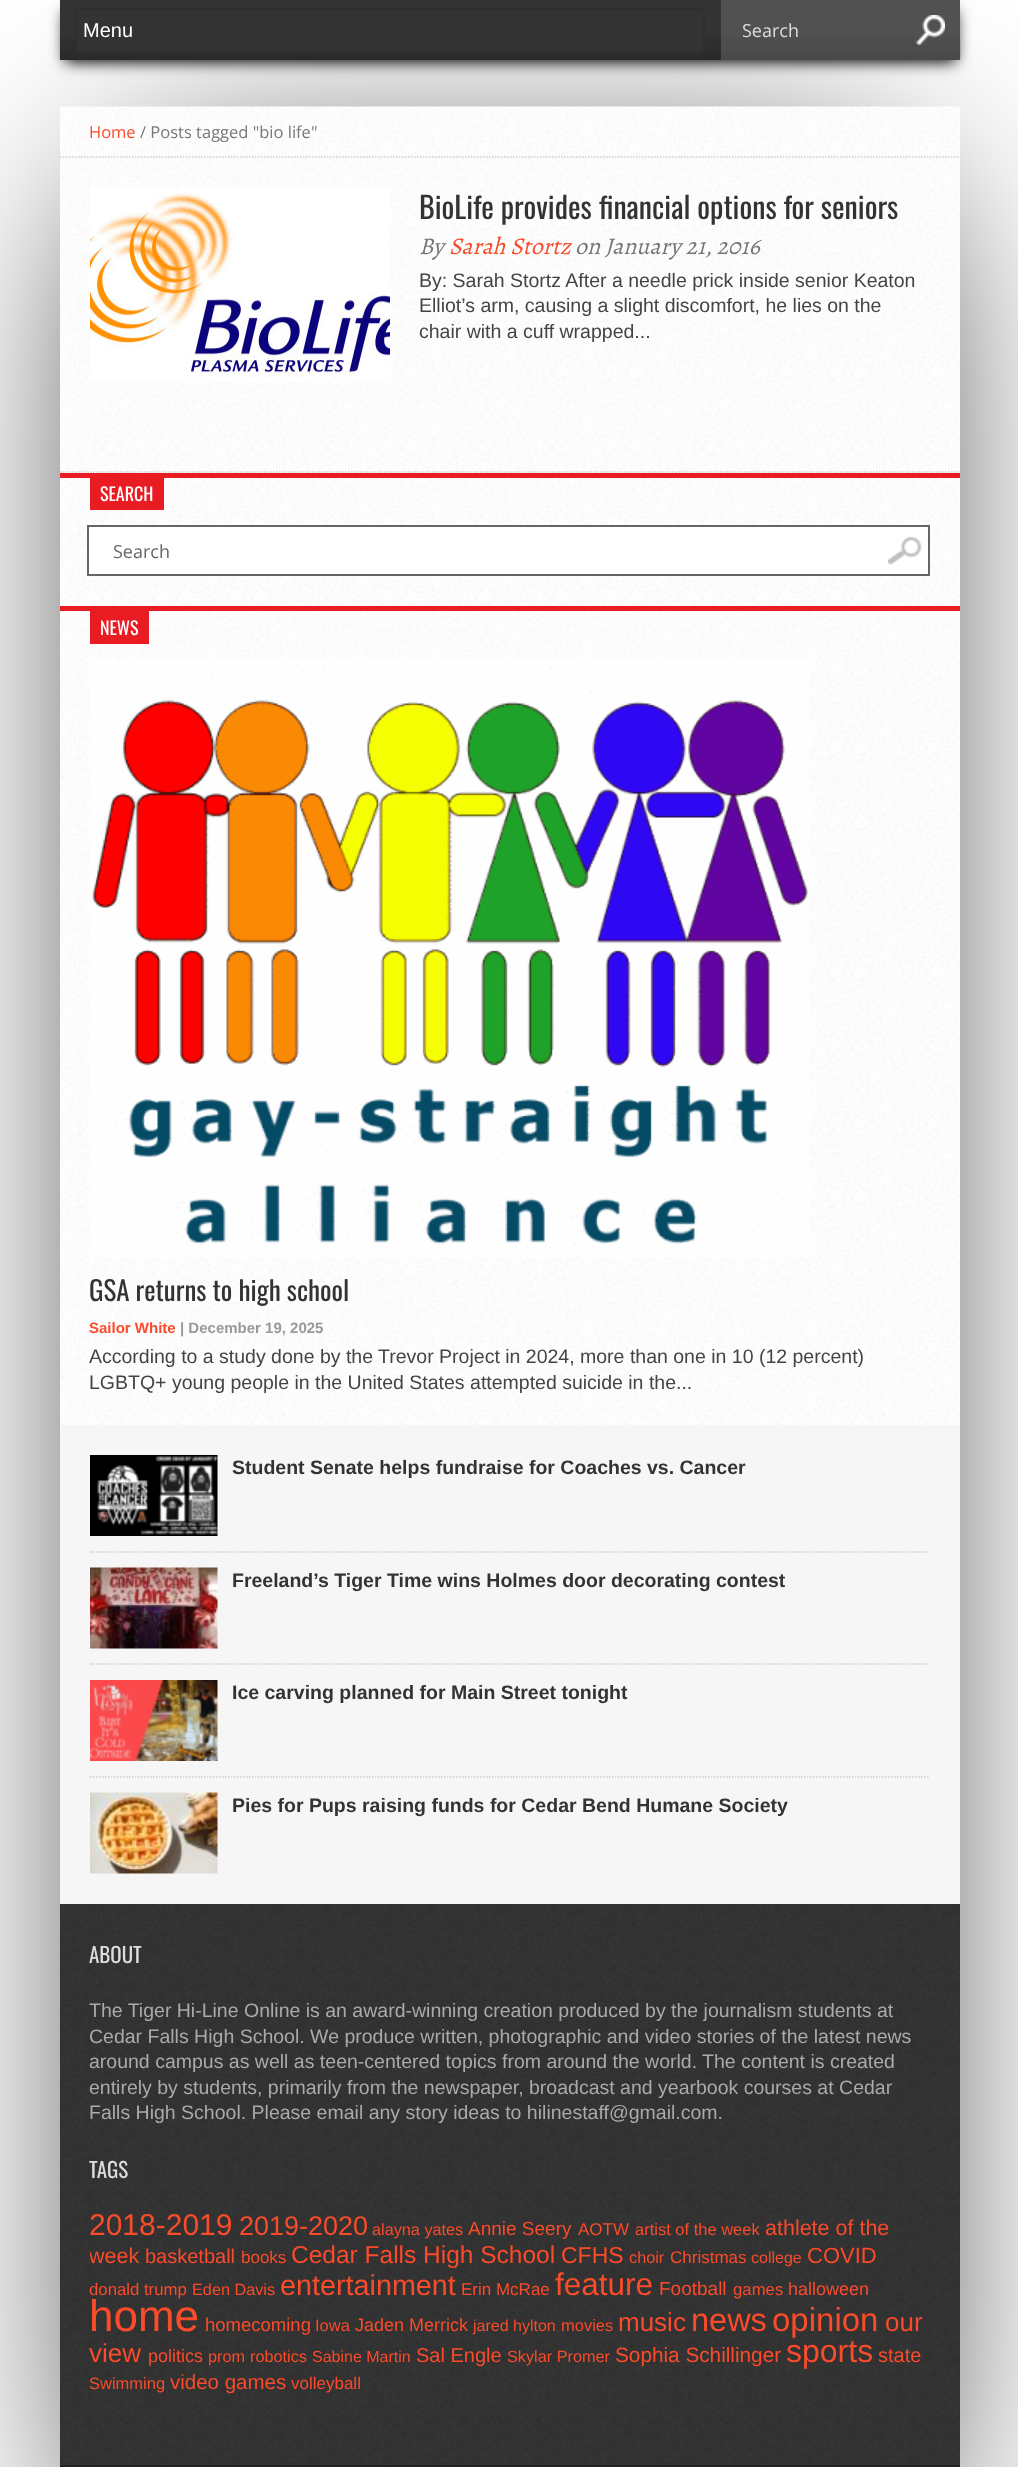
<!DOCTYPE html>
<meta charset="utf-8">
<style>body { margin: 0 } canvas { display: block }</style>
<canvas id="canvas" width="1018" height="2467"></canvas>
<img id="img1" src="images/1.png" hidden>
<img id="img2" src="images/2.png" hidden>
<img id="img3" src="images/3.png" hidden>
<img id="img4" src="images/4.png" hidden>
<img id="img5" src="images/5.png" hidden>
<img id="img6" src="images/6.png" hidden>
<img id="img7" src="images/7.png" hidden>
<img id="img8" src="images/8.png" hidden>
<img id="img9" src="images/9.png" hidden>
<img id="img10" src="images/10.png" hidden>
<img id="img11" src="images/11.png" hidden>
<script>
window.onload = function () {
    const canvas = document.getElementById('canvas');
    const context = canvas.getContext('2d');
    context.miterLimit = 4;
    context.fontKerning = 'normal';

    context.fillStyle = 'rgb(255, 255, 255)';
    context.fillRect(0, 0, 1018, 2467);
    context.fillStyle = 'rgb(0, 0, 0)';
    context.filter = 'blur(7.5px)';
    context.beginPath();
    context.rect(65, 11, 891, 51);
    context.fill();
    context.filter = 'none';
    context.filter = 'blur(112.5px)';
    context.beginPath();
    context.rect(120, 197, 780, 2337);
    context.fill();
    context.filter = 'none';
    context.fillStyle = 'rgb(51, 51, 51)';
    context.fillRect(60, 0, 900, 60);
    context.drawImage(document.getElementById('img1'), 59, 37, 902, 23);
    context.beginPath();
    context.roundRect(76, 9, 628, 43, 4);
    context.fill();
    context.strokeStyle = 'rgb(45, 47, 49)';
    context.lineWidth = 2;
    context.stroke();
    context.fillStyle = 'rgba(255, 255, 255, 0.15)';
    context.fillRect(721, 0, 239, 60);
    context.drawImage(document.getElementById('img2'), 916, 15, 29, 30);
    context.drawImage(document.getElementById('img3'), 60, 106, 900, 1319);
    context.beginPath();
    context.moveTo(60, 157);
    context.lineTo(960, 157);
    context.strokeStyle = 'rgb(204, 204, 204)';
    context.lineWidth = 1.5;
    context.setLineDash([1.5, 1.5]);
    context.stroke();
    context.drawImage(document.getElementById('img4'), 90, 187, 300, 194);
    context.beginPath();
    context.moveTo(60, 472);
    context.lineTo(960, 472);
    context.stroke();
    context.fillStyle = 'rgb(233, 27, 35)';
    context.fillRect(60, 473, 900, 5);
    context.fillRect(90, 478, 74, 32);
    context.fillStyle = 'rgb(255, 255, 255)';
    context.fillRect(89, 527, 839, 47);
    context.drawImage(document.getElementById('img5'), 888, 536, 34, 29);
    context.strokeStyle = 'rgb(102, 102, 102)';
    context.lineWidth = 2;
    context.setLineDash([]);
    context.strokeRect(88, 526, 841, 49);
    context.fillStyle = 'rgb(233, 27, 35)';
    context.fillRect(60, 606, 900, 5);
    context.fillRect(90, 611, 59, 33);
    context.drawImage(document.getElementById('img6'), 90, 659, 720, 599);
    context.fillStyle = 'rgb(246, 246, 246)';
    context.fillRect(60, 1425, 900, 479);
    context.drawImage(document.getElementById('img7'), 90, 1455, 128, 81);
    context.beginPath();
    context.moveTo(90, 1552);
    context.lineTo(930, 1552);
    context.strokeStyle = 'rgb(204, 204, 204)';
    context.lineWidth = 1.5;
    context.setLineDash([1.5, 1.5]);
    context.stroke();
    context.drawImage(document.getElementById('img8'), 90, 1567, 128, 82);
    context.beginPath();
    context.moveTo(90, 1664);
    context.lineTo(930, 1664);
    context.stroke();
    context.drawImage(document.getElementById('img9'), 90, 1680, 128, 81);
    context.beginPath();
    context.moveTo(90, 1777);
    context.lineTo(930, 1777);
    context.stroke();
    context.drawImage(document.getElementById('img10'), 90, 1792, 128, 82);
    context.drawImage(document.getElementById('img11'), 60, 1904, 900, 561);
    context.fillStyle = 'rgb(34, 34, 34)';
    context.fillRect(60, 2465, 900, 2);
    context.font = '20px Liberation Sans';
    context.fillStyle = 'rgb(255, 255, 255)';
    context.fillText('Menu', 83, 37);
    context.save();
    context.beginPath();
    context.rect(743, 18, 181, 26);
    context.clip();
    context.font = '18px Open Sans';
    context.fillStyle = 'rgb(221, 221, 221)';
    context.fillText('Search', 742, 37);
    context.restore();
    context.font = '16.5px Open Sans';
    context.fillStyle = 'rgb(250, 75, 42)';
    context.fillText('Home', 89, 138);
    context.fillStyle = 'rgb(119, 119, 119)';
    context.fillText('/ Posts tagged "bio life"', 140, 138);
    context.font = '30px Oswald';
    context.fillStyle = 'rgb(51, 51, 51)';
    context.fillText('BioLife provides financial options for seniors', 419, 219);
    context.font = 'italic 24px Alegreya';
    context.fillStyle = 'rgb(119, 119, 119)';
    context.fillText('By', 419, 254);
    context.fillStyle = 'rgb(250, 75, 42)';
    context.fillText('Sarah Stortz', 449, 254);
    context.fillStyle = 'rgb(119, 119, 119)';
    context.fillText('on January 21, 2016', 575, 254);
    context.font = '19.5px Liberation Sans';
    context.fillStyle = 'rgb(68, 68, 68)';
    context.fillText('By: Sarah Stortz After a needle prick inside senior Keaton', 419, 287);
    context.fillText('Elliot’s arm, causing a slight discomfort, he lies on the', 419, 312);
    context.fillText('chair with a cuff wrapped...', 419, 338);
    context.font = '18px Oswald';
    context.fillStyle = 'rgb(255, 255, 255)';
    context.fillText('SEARCH', 100, 501);
    context.font = '18px Open Sans';
    context.fillStyle = 'rgb(102, 102, 102)';
    context.fillText('Search', 113, 558);
    context.font = '18px Oswald';
    context.fillStyle = 'rgb(255, 255, 255)';
    context.fillText('NEWS', 100, 635);
    context.font = '27px Oswald';
    context.fillStyle = 'rgb(51, 51, 51)';
    context.fillText('GSA returns to high school', 89, 1301);
    context.font = 'bold 15px Liberation Sans';
    context.fillStyle = 'rgb(250, 75, 42)';
    context.fillText('Sailor White', 89, 1333);
    context.fillStyle = 'rgb(153, 153, 153)';
    context.fillText('| December 19, 2025', 180, 1333);
    context.font = '19.5px Liberation Sans';
    context.fillStyle = 'rgb(68, 68, 68)';
    context.fillText('According to a study done by the Trevor Project in 2024, more than one in 10 (12 percent)', 89, 1363);
    context.fillText('LGBTQ+ young people in the United States attempted suicide in the...', 89, 1389);
    context.font = 'bold 19.5px Liberation Sans';
    context.fillStyle = 'rgb(51, 51, 51)';
    context.fillText('Student Senate helps fundraise for Coaches vs. Cancer', 232, 1474);
    context.fillText('Freeland’s Tiger Time wins Holmes door decorating contest', 232, 1587);
    context.fillText('Ice carving planned for Main Street tonight', 232, 1699);
    context.fillText('Pies for Pups raising funds for Cedar Bend Humane Society', 232, 1812);
    context.font = '21px Oswald';
    context.fillStyle = 'rgb(221, 221, 221)';
    context.fillText('ABOUT', 89, 1963);
    context.font = '19.5px Liberation Sans';
    context.fillStyle = 'rgb(170, 170, 170)';
    context.fillText('The Tiger Hi-Line Online is an award-winning creation produced by the journalism students at', 89, 2017);
    context.fillText('Cedar Falls High School. We produce written, photographic and video stories of the latest news', 89, 2043);
    context.fillText('around campus as well as teen-centered topics from around the world.', 89, 2068);
    context.fillText('The content is created', 702, 2068);
    context.fillText('entirely by students, primarily from the newspaper, broadcast and yearbook courses at Cedar', 89, 2094);
    context.fillText('Falls High School. Please email any story ideas to hilinestaff@gmail.com.', 89, 2119);
    context.font = '21px Oswald';
    context.fillStyle = 'rgb(221, 221, 221)';
    context.fillText('TAGS', 89, 2178);
    context.font = '30px Liberation Sans';
    context.fillStyle = 'rgb(250, 75, 42)';
    context.fillText('2018-2019', 89, 2235);
    context.font = '27px Liberation Sans';
    context.fillText('2019-2020', 239, 2235);
    context.font = '16.25px Liberation Sans';
    context.fillText('alayna yates', 372, 2235);
    context.font = '19px Liberation Sans';
    context.fillText('Annie Seery', 468, 2235);
    context.font = '17px Liberation Sans';
    context.fillText('AOTW', 578, 2235);
    context.font = '16.5px Liberation Sans';
    context.fillText('artist of the week', 635, 2235);
    context.font = '21.5px Liberation Sans';
    context.fillText('athlete of the', 765, 2235);
    context.save();
    context.beginPath();
    context.rect(90, 2156, 840, 241);
    context.clip();
    context.fillText('week', 89, 2263);
    context.restore();
    context.font = '20px Liberation Sans';
    context.fillText('basketball', 145, 2263);
    context.font = '17px Liberation Sans';
    context.fillText('books', 241, 2263);
    context.font = '24.5px Liberation Sans';
    context.fillText('Cedar Falls High School', 291, 2263);
    context.font = '23px Liberation Sans';
    context.fillText('CFHS', 561, 2263);
    context.font = '16.25px Liberation Sans';
    context.fillText('choir', 629, 2263);
    context.font = '17px Liberation Sans';
    context.fillText('Christmas', 670, 2263);
    context.font = '16px Liberation Sans';
    context.fillText('college', 751, 2263);
    context.font = '22px Liberation Sans';
    context.fillText('COVID', 807, 2263);
    context.font = '16.75px Liberation Sans';
    context.fillText('donald trump', 89, 2295);
    context.font = '16.25px Liberation Sans';
    context.fillText('Eden Davis', 192, 2295);
    context.font = '28.75px Liberation Sans';
    context.fillText('entertainment', 280, 2295);
    context.font = '17px Liberation Sans';
    context.fillText('Erin McRae', 461, 2295);
    context.font = '31.5px Liberation Sans';
    context.fillText('feature', 555, 2295);
    context.font = '19px Liberation Sans';
    context.fillText('Football', 659, 2295);
    context.font = '16.75px Liberation Sans';
    context.fillText('games', 733, 2295);
    context.font = '18px Liberation Sans';
    context.fillText('halloween', 788, 2295);
    context.font = '44px Liberation Sans';
    context.fillText('home', 89, 2331);
    context.font = '18.5px Liberation Sans';
    context.fillText('homecoming', 205, 2331);
    context.font = '16.5px Liberation Sans';
    context.fillText('Iowa', 315, 2331);
    context.font = '18px Liberation Sans';
    context.fillText('Jaden Merrick', 355, 2331);
    context.font = '16px Liberation Sans';
    context.fillText('jared hylton', 473, 2331);
    context.font = '16.5px Liberation Sans';
    context.fillText('movies', 561, 2331);
    context.font = '26px Liberation Sans';
    context.fillText('music', 618, 2331);
    context.font = '32.5px Liberation Sans';
    context.fillText('news', 691, 2331);
    context.font = '33px Liberation Sans';
    context.fillText('opinion', 772, 2331);
    context.font = '26px Liberation Sans';
    context.fillText('our', 885, 2331);
    context.fillText('view', 89, 2362);
    context.font = '18px Liberation Sans';
    context.fillText('politics', 148, 2362);
    context.font = '16.25px Liberation Sans';
    context.fillText('prom', 208, 2362);
    context.fillText('robotics', 250, 2362);
    context.font = '16px Liberation Sans';
    context.fillText('Sabine Martin', 312, 2362);
    context.font = '20px Liberation Sans';
    context.fillText('Sal Engle', 416, 2362);
    context.font = '16.25px Liberation Sans';
    context.fillText('Skylar Promer', 507, 2362);
    context.font = '20.75px Liberation Sans';
    context.fillText('Sophia Schillinger', 615, 2362);
    context.font = '32px Liberation Sans';
    context.fillText('sports', 786, 2362);
    context.font = '20px Liberation Sans';
    context.fillText('state', 878, 2362);
    context.font = '16.5px Liberation Sans';
    context.fillText('Swimming', 89, 2389);
    context.font = '20.5px Liberation Sans';
    context.fillText('video games', 170, 2389);
    context.font = '17px Liberation Sans';
    context.fillText('volleyball', 291, 2389);
};
</script>
